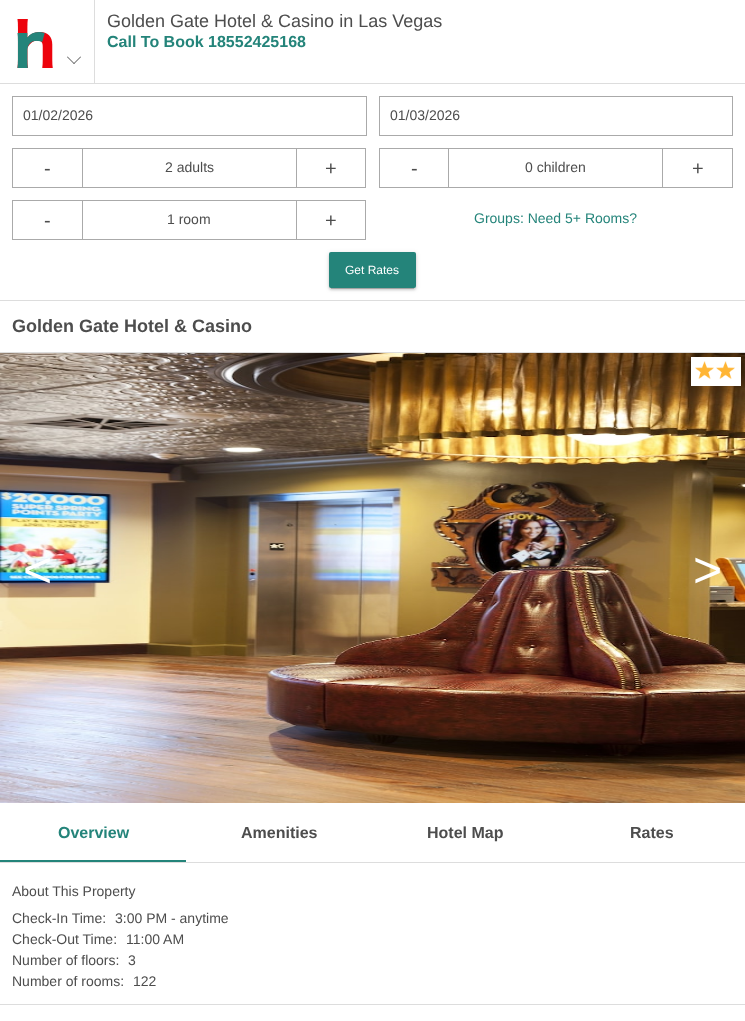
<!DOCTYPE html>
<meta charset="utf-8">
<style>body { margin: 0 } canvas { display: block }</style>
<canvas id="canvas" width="745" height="1021"></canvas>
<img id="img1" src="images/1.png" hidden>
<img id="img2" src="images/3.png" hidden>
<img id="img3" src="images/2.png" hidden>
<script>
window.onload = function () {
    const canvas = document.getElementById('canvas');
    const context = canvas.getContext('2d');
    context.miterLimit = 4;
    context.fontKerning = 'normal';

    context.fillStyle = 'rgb(255, 255, 255)';
    context.fillRect(0, 0, 745, 1021);
    context.fillStyle = 'rgb(221, 221, 221)';
    context.fillRect(0, 83, 745, 1);
    context.fillRect(94, 0, 1, 83);
    context.drawImage(document.getElementById('img1'), 17, 19, 36, 49);
    context.fillStyle = 'rgb(77, 77, 77)';
    context.beginPath();
    context.moveTo(81, 57);
    context.lineTo(74, 64);
    context.lineTo(73.5, 63.5);
    context.lineTo(80.5, 56.5);
    context.closePath();
    context.fill();
    context.beginPath();
    context.moveTo(74.5, 63.5);
    context.lineTo(74, 64);
    context.lineTo(67, 57);
    context.lineTo(67.5, 56.5);
    context.closePath();
    context.fill();
    context.fillStyle = 'rgb(221, 221, 221)';
    context.fillRect(0, 300, 745, 1);
    context.strokeStyle = 'rgb(170, 170, 170)';
    context.strokeRect(12.5, 96.5, 354, 39);
    context.strokeRect(379.5, 96.5, 353, 39);
    context.strokeRect(12.5, 148.5, 70, 39);
    context.fillStyle = 'rgb(170, 170, 170)';
    context.fillRect(83, 148, 213, 1);
    context.fillRect(83, 187, 213, 1);
    context.strokeRect(296.5, 148.5, 69, 39);
    context.strokeRect(379.5, 148.5, 69, 39);
    context.fillRect(449, 148, 213, 1);
    context.fillRect(449, 187, 213, 1);
    context.strokeRect(662.5, 148.5, 70, 39);
    context.strokeRect(12.5, 200.5, 70, 39);
    context.fillRect(83, 200, 213, 1);
    context.fillRect(83, 239, 213, 1);
    context.strokeRect(296.5, 200.5, 69, 39);
    context.fillStyle = 'rgba(0, 0, 0, 0.12)';
    context.filter = 'blur(2.5px)';
    context.beginPath();
    context.roundRect(329, 253, 87, 36, 2);
    context.fill();
    context.filter = 'none';
    context.fillStyle = 'rgba(0, 0, 0, 0.2)';
    context.filter = 'blur(0.5px)';
    context.beginPath();
    context.rect(331, 257, 83, 32);
    context.fill();
    context.filter = 'none';
    context.fillStyle = 'rgba(0, 0, 0, 0.14)';
    context.filter = 'blur(1px)';
    context.beginPath();
    context.roundRect(329, 254, 87, 36, 2);
    context.fill();
    context.filter = 'none';
    context.fillStyle = 'rgb(36, 132, 122)';
    context.beginPath();
    context.roundRect(329, 252, 87, 36, 2);
    context.fill();
    context.fillStyle = 'rgb(221, 221, 221)';
    context.fillRect(0, 352, 745, 1);
    context.drawImage(document.getElementById('img2'), 0, 353, 745, 450);
    context.fillStyle = 'rgb(255, 255, 255)';
    context.fillRect(691, 357, 50, 29);
    context.drawImage(document.getElementById('img3'), 695, 361, 19, 18);
    context.drawImage(document.getElementById('img3'), 716, 361, 19, 18);
    context.fillStyle = 'rgb(221, 221, 221)';
    context.fillRect(0, 862, 745, 1);
    context.fillStyle = 'rgb(36, 132, 122)';
    context.fillRect(0, 860, 186, 2);
    context.fillStyle = 'rgb(221, 221, 221)';
    context.fillRect(0, 1004, 745, 1);
    context.font = '18px Liberation Sans';
    context.fillStyle = 'rgb(77, 77, 77)';
    context.fillText('Golden Gate Hotel & Casino in Las Vegas', 107, 27);
    context.font = 'bold 16px Liberation Sans';
    context.fillStyle = 'rgb(36, 132, 122)';
    context.fillText('Call To Book 18552425168', 107, 47);
    context.font = '14px Liberation Sans';
    context.fillStyle = 'rgb(77, 77, 77)';
    context.fillText('01/02/2026', 23, 120);
    context.fillText('01/03/2026', 390, 120);
    context.font = '20px Liberation Sans';
    context.fillText('-', 44, 175);
    context.font = '14px Liberation Sans';
    context.fillText('2 adults', 165, 172);
    context.font = '20px Liberation Sans';
    context.fillText('+', 325, 175);
    context.fillText('-', 411, 175);
    context.font = '14px Liberation Sans';
    context.fillText('0 children', 525, 172);
    context.font = '20px Liberation Sans';
    context.fillText('+', 692, 175);
    context.fillText('-', 44, 227);
    context.font = '14px Liberation Sans';
    context.fillText('1 room', 167, 224);
    context.font = '20px Liberation Sans';
    context.fillText('+', 325, 227);
    context.font = '14px Liberation Sans';
    context.fillStyle = 'rgb(36, 132, 122)';
    context.fillText('Groups: Need 5+ Rooms?', 474, 223);
    context.font = '12px Liberation Sans';
    context.fillStyle = 'rgb(255, 255, 255)';
    context.fillText('Get Rates', 345, 274);
    context.font = 'bold 18px Liberation Sans';
    context.fillStyle = 'rgb(77, 77, 77)';
    context.fillText('Golden Gate Hotel & Casino', 12, 332);
    context.font = '50px Liberation Sans';
    context.fillStyle = 'rgb(255, 255, 255)';
    context.fillText('<', 23, 587);
    context.fillText('>', 693, 587);
    context.font = 'bold 16px Liberation Sans';
    context.fillStyle = 'rgb(36, 132, 122)';
    context.fillText('Overview', 58, 838);
    context.fillStyle = 'rgb(77, 77, 77)';
    context.fillText('Amenities', 241, 838);
    context.fillText('Hotel Map', 427, 838);
    context.fillText('Rates', 630, 838);
    context.font = '14px Liberation Sans';
    context.fillText('About This Property', 12, 896);
    context.fillText('Check-In Time:', 12, 923);
    context.fillText('3:00 PM - anytime', 115, 923);
    context.fillText('Check-Out Time:', 12, 944);
    context.fillText('11:00 AM', 126, 944);
    context.fillText('Number of floors:', 12, 965);
    context.fillText('3', 128, 965);
    context.fillText('Number of rooms:', 12, 986);
    context.fillText('122', 133, 986);
};
</script>
